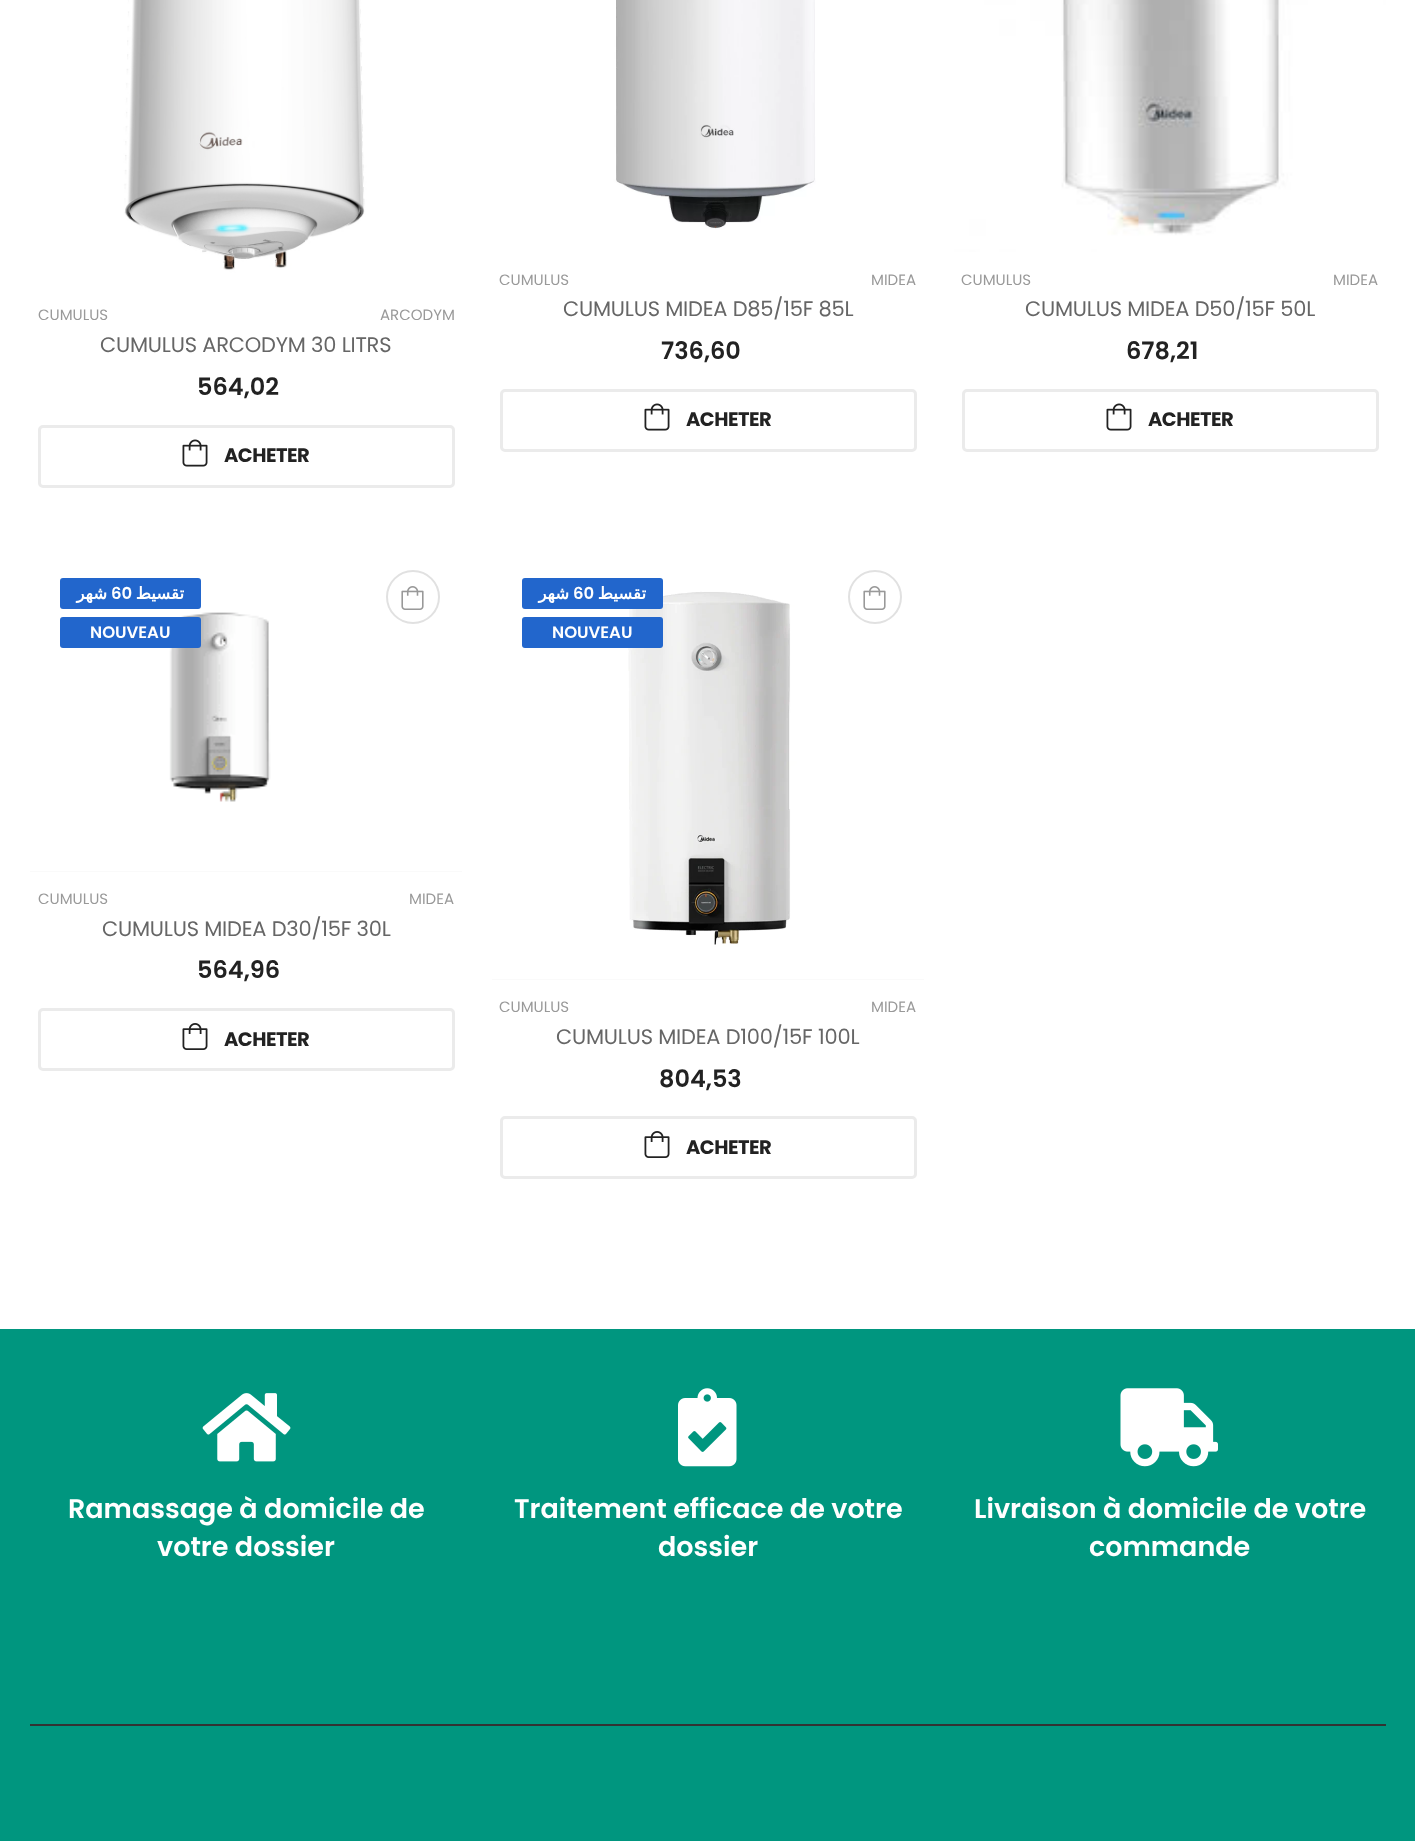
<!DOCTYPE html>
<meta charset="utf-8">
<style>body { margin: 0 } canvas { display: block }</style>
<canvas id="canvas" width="1415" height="1841"></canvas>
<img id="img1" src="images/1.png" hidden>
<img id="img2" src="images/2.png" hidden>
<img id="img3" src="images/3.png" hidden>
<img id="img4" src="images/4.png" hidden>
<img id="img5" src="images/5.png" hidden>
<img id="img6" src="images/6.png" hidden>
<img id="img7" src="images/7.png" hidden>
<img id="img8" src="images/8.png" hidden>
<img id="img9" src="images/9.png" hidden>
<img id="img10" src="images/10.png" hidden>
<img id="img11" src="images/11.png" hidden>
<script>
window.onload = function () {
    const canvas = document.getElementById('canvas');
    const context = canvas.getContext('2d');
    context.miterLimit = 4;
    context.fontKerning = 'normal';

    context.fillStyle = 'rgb(255, 255, 255)';
    context.fillRect(0, 0, 1415, 1841);
    context.drawImage(document.getElementById('img1'), 30, 0, 432, 288);
    context.beginPath();
    context.roundRect(39.5, 426.5, 414, 60, 3.5);
    context.strokeStyle = 'rgb(235, 235, 235)';
    context.lineWidth = 3;
    context.stroke();
    context.drawImage(document.getElementById('img2'), 182, 439, 26, 28);
    context.drawImage(document.getElementById('img3'), 492, 0, 432, 252);
    context.beginPath();
    context.roundRect(501.5, 390.5, 414, 60, 3.5);
    context.stroke();
    context.drawImage(document.getElementById('img2'), 644, 403, 26, 28);
    context.drawImage(document.getElementById('img4'), 954, 0, 432, 252);
    context.beginPath();
    context.roundRect(963.5, 390.5, 414, 60, 3.5);
    context.stroke();
    context.drawImage(document.getElementById('img2'), 1106, 403, 26, 28);
    context.fillStyle = 'rgb(245, 245, 245)';
    context.fillRect(30, 871, 432, 1);
    context.drawImage(document.getElementById('img5'), 30, 548, 432, 324);
    context.fillStyle = 'rgb(34, 102, 204)';
    context.beginPath();
    context.roundRect(60, 578, 141, 31, 3);
    context.fill();
    context.beginPath();
    context.roundRect(60, 617, 141, 31, 3);
    context.fill();
    context.beginPath();
    context.arc(413, 597, 26, 0, 2 * Math.PI);
    context.strokeStyle = 'rgb(225, 225, 225)';
    context.lineWidth = 2;
    context.stroke();
    context.drawImage(document.getElementById('img6'), 401, 586, 23, 24);
    context.beginPath();
    context.roundRect(39.5, 1009.5, 414, 60, 3.5);
    context.strokeStyle = 'rgb(235, 235, 235)';
    context.lineWidth = 3;
    context.stroke();
    context.drawImage(document.getElementById('img7'), 182, 1023, 26, 27);
    context.fillStyle = 'rgb(245, 245, 245)';
    context.fillRect(492, 979, 432, 1);
    context.drawImage(document.getElementById('img8'), 492, 548, 432, 432);
    context.fillStyle = 'rgb(34, 102, 204)';
    context.beginPath();
    context.roundRect(522, 578, 141, 31, 3);
    context.fill();
    context.beginPath();
    context.roundRect(522, 617, 141, 31, 3);
    context.fill();
    context.beginPath();
    context.arc(875, 597, 26, 0, 2 * Math.PI);
    context.strokeStyle = 'rgb(225, 225, 225)';
    context.lineWidth = 2;
    context.stroke();
    context.drawImage(document.getElementById('img6'), 863, 586, 23, 24);
    context.beginPath();
    context.roundRect(501.5, 1117.5, 414, 60, 3.5);
    context.strokeStyle = 'rgb(235, 235, 235)';
    context.lineWidth = 3;
    context.stroke();
    context.drawImage(document.getElementById('img7'), 644, 1131, 26, 27);
    context.fillStyle = 'rgb(0, 150, 127)';
    context.fillRect(0, 1329, 1415, 512);
    context.fillStyle = 'rgb(51, 51, 51)';
    context.fillRect(30, 1724, 1356, 2);
    context.drawImage(document.getElementById('img9'), 202, 1393, 89, 69);
    context.drawImage(document.getElementById('img10'), 678, 1388, 59, 79);
    context.drawImage(document.getElementById('img11'), 1120, 1388, 98, 79);
    context.font = '15px Poppins';
    context.fillStyle = 'rgb(153, 153, 153)';
    context.fillText('CUMULUS', 38, 320);
    context.fillText('ARCODYM', 380, 320);
    context.letterSpacing = '-0.2px';
    context.font = '21px Poppins';
    context.fillStyle = 'rgb(102, 102, 102)';
    context.fillText('CUMULUS ARCODYM 30 LITRS', 100, 352);
    context.letterSpacing = '0px';
    context.font = '600 24px Poppins';
    context.fillStyle = 'rgb(34, 34, 34)';
    context.fillText('564,02', 197, 395);
    context.letterSpacing = '-0.5px';
    context.font = 'bold 19.5px Poppins';
    context.fillText('ACHETER', 224, 462);
    context.letterSpacing = '0px';
    context.font = '15px Poppins';
    context.fillStyle = 'rgb(153, 153, 153)';
    context.fillText('CUMULUS', 499, 285);
    context.fillText('MIDEA', 871, 285);
    context.letterSpacing = '-0.2px';
    context.font = '21px Poppins';
    context.fillStyle = 'rgb(102, 102, 102)';
    context.fillText('CUMULUS MIDEA D85/15F 85L', 563, 316);
    context.letterSpacing = '0px';
    context.font = '600 24px Poppins';
    context.fillStyle = 'rgb(34, 34, 34)';
    context.fillText('736,60', 661, 359);
    context.letterSpacing = '-0.5px';
    context.font = 'bold 19.5px Poppins';
    context.fillText('ACHETER', 686, 426);
    context.letterSpacing = '0px';
    context.font = '15px Poppins';
    context.fillStyle = 'rgb(153, 153, 153)';
    context.fillText('CUMULUS', 961, 285);
    context.fillText('MIDEA', 1333, 285);
    context.letterSpacing = '-0.2px';
    context.font = '21px Poppins';
    context.fillStyle = 'rgb(102, 102, 102)';
    context.fillText('CUMULUS MIDEA D50/15F 50L', 1025, 316);
    context.letterSpacing = '0px';
    context.font = '600 24px Poppins';
    context.fillStyle = 'rgb(34, 34, 34)';
    context.fillText('678,21', 1126, 359);
    context.letterSpacing = '-0.5px';
    context.font = 'bold 19.5px Poppins';
    context.fillText('ACHETER', 1148, 426);
    context.letterSpacing = '0px';
    context.direction = 'rtl';
    context.font = 'bold 16.5px DejaVu Sans';
    context.fillStyle = 'rgb(255, 255, 255)';
    context.fillText('شهر', 107, 599);
    context.direction = 'ltr';
    context.font = '600 16.5px Poppins';
    context.fillText('60', 111, 599);
    context.direction = 'rtl';
    context.font = 'bold 16.5px DejaVu Sans';
    context.fillText('تقسيط', 184, 599);
    context.direction = 'ltr';
    context.font = '600 16.5px Poppins';
    context.fillText('NOUVEAU', 90, 638);
    context.font = '15px Poppins';
    context.fillStyle = 'rgb(153, 153, 153)';
    context.fillText('CUMULUS', 38, 904);
    context.fillText('MIDEA', 409, 904);
    context.letterSpacing = '-0.2px';
    context.font = '21px Poppins';
    context.fillStyle = 'rgb(102, 102, 102)';
    context.fillText('CUMULUS MIDEA D30/15F 30L', 102, 936);
    context.letterSpacing = '0px';
    context.font = '600 24px Poppins';
    context.fillStyle = 'rgb(34, 34, 34)';
    context.fillText('564,96', 197, 978);
    context.letterSpacing = '-0.5px';
    context.font = 'bold 19.5px Poppins';
    context.fillText('ACHETER', 224, 1046);
    context.letterSpacing = '0px';
    context.direction = 'rtl';
    context.font = 'bold 16.5px DejaVu Sans';
    context.fillStyle = 'rgb(255, 255, 255)';
    context.fillText('شهر', 569, 599);
    context.direction = 'ltr';
    context.font = '600 16.5px Poppins';
    context.fillText('60', 573, 599);
    context.direction = 'rtl';
    context.font = 'bold 16.5px DejaVu Sans';
    context.fillText('تقسيط', 646, 599);
    context.direction = 'ltr';
    context.font = '600 16.5px Poppins';
    context.fillText('NOUVEAU', 552, 638);
    context.font = '15px Poppins';
    context.fillStyle = 'rgb(153, 153, 153)';
    context.fillText('CUMULUS', 499, 1012);
    context.fillText('MIDEA', 871, 1012);
    context.letterSpacing = '-0.2px';
    context.font = '21px Poppins';
    context.fillStyle = 'rgb(102, 102, 102)';
    context.fillText('CUMULUS MIDEA D100/15F 100L', 556, 1044);
    context.letterSpacing = '0px';
    context.font = '600 24px Poppins';
    context.fillStyle = 'rgb(34, 34, 34)';
    context.fillText('804,53', 659, 1087);
    context.letterSpacing = '-0.5px';
    context.font = 'bold 19.5px Poppins';
    context.fillText('ACHETER', 686, 1154);
    context.letterSpacing = '0px';
    context.font = '600 27px Poppins';
    context.fillStyle = 'rgb(255, 255, 255)';
    context.fillText('Ramassage à domicile de', 68, 1518);
    context.fillText('votre dossier', 157, 1556);
    context.fillText('Traitement efficace de votre', 514, 1518);
    context.fillText('dossier', 658, 1556);
    context.fillText('Livraison à domicile de votre', 974, 1518);
    context.fillText('commande', 1089, 1556);
};
</script>
